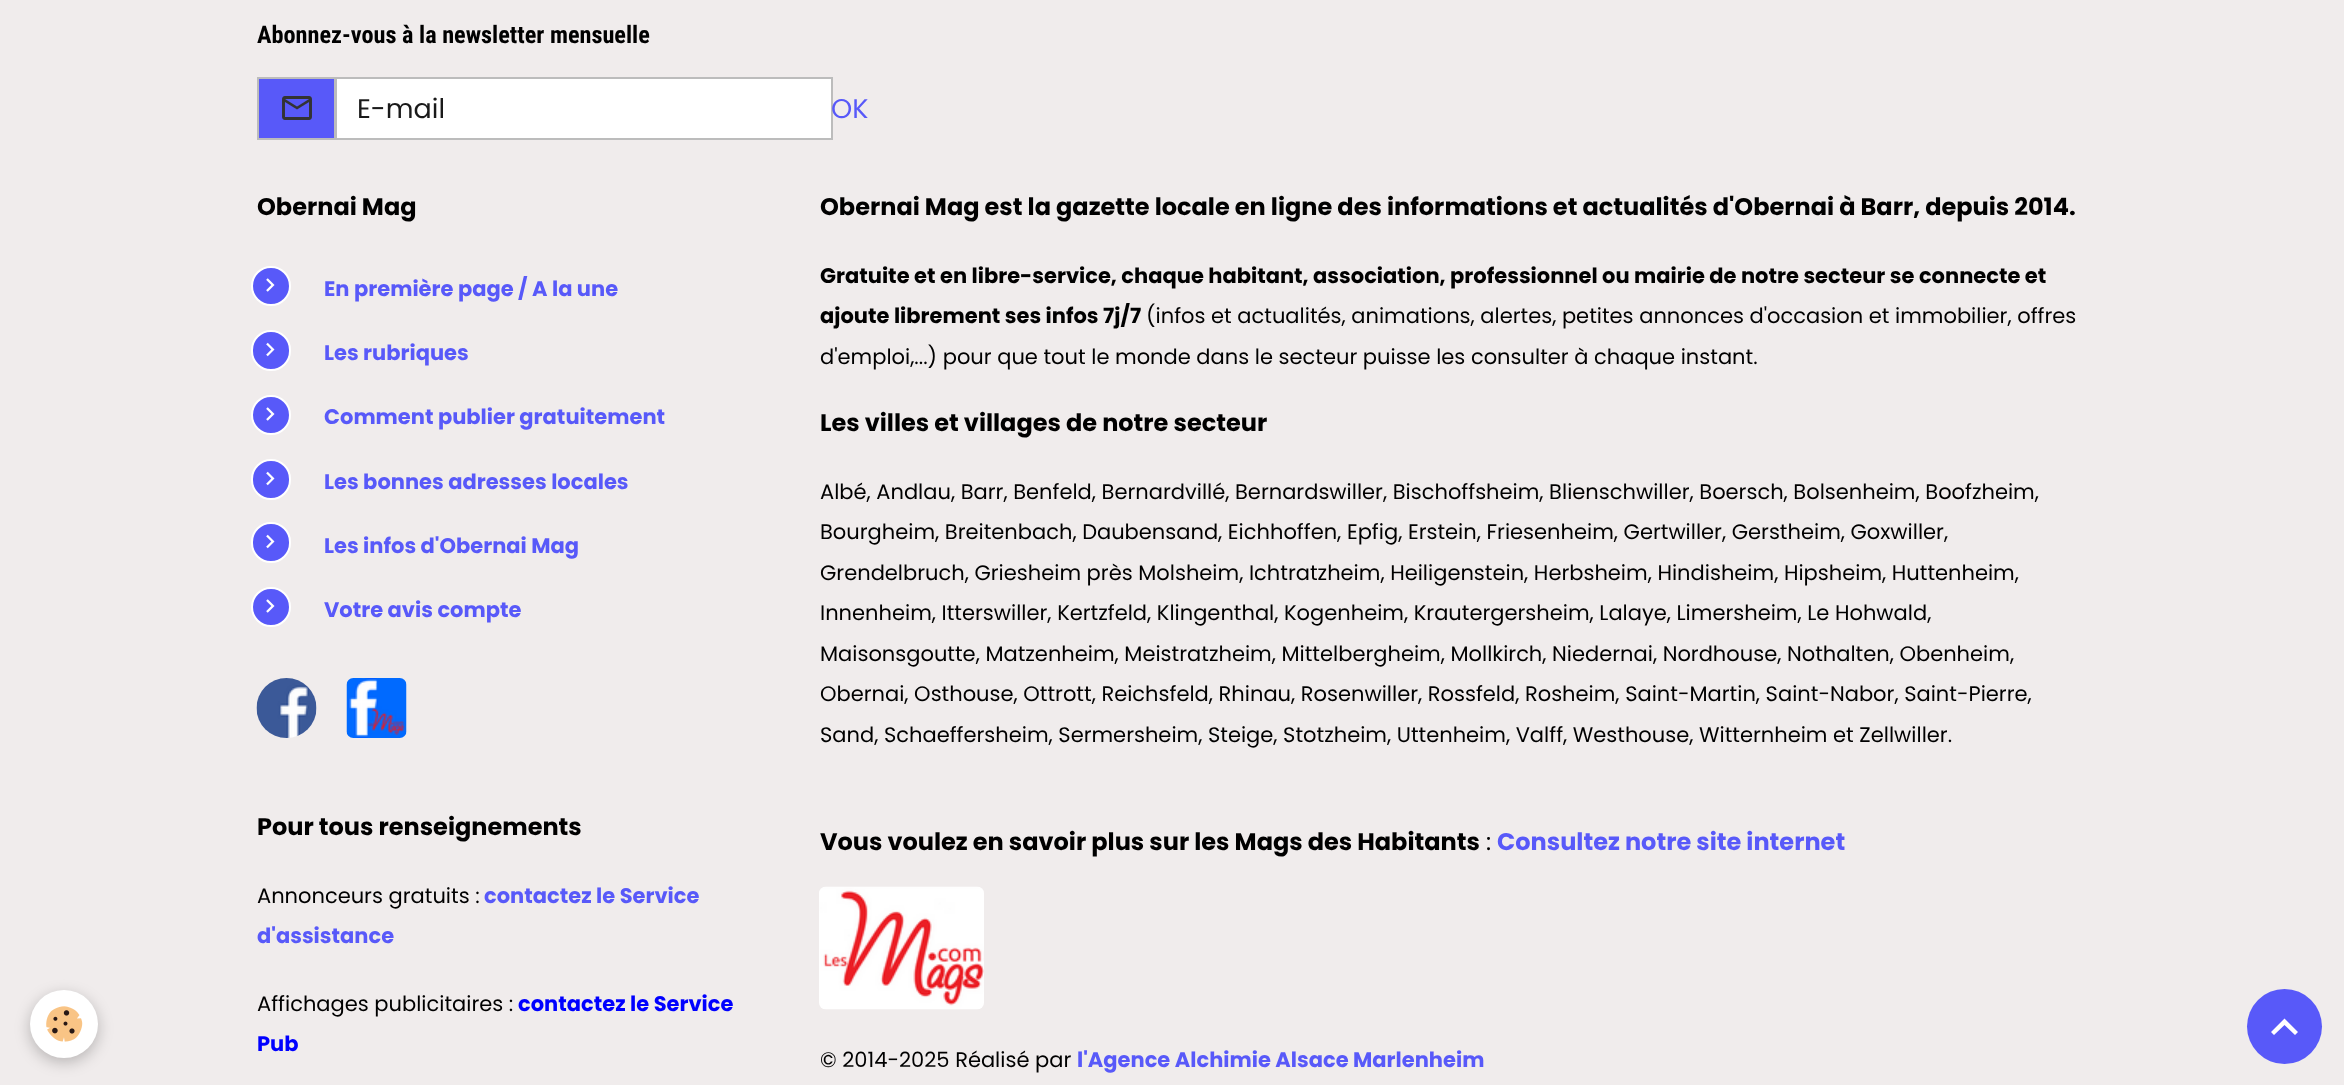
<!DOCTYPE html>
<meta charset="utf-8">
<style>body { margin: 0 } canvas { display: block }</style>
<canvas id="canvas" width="2344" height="1085"></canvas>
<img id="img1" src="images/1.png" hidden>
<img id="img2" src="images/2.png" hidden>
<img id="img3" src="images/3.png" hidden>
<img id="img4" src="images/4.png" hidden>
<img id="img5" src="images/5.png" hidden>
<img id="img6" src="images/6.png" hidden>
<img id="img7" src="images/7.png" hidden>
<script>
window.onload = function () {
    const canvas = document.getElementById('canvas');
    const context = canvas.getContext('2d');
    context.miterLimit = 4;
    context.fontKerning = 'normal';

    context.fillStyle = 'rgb(240, 236, 236)';
    context.fillRect(0, 0, 2344, 1085);
    context.fillStyle = 'rgba(0, 0, 0, 0.24)';
    context.filter = 'blur(7.5px)';
    context.beginPath();
    context.roundRect(30, 995, 68, 67, 33.5);
    context.fill();
    context.filter = 'none';
    context.fillStyle = 'rgb(255, 255, 255)';
    context.beginPath();
    context.arc(64, 1024, 34, 0, 2 * Math.PI);
    context.fill();
    context.drawImage(document.getElementById('img1'), 46, 1006, 37, 36);
    context.fillStyle = 'rgb(88, 89, 249)';
    context.beginPath();
    context.rect(258, 78, 77, 61);
    context.fill();
    context.strokeStyle = 'rgb(188, 188, 188)';
    context.lineWidth = 2;
    context.stroke();
    context.drawImage(document.getElementById('img2'), 282, 96, 30, 24);
    context.fillStyle = 'rgb(255, 255, 255)';
    context.beginPath();
    context.rect(336, 78, 496, 61);
    context.fill();
    context.stroke();
    context.fillStyle = 'rgb(88, 89, 249)';
    context.beginPath();
    context.arc(271, 286, 19, 0, 2 * Math.PI);
    context.fill();
    context.strokeStyle = 'rgb(255, 255, 255)';
    context.stroke();
    context.drawImage(document.getElementById('img3'), 266, 278, 9, 14);
    context.beginPath();
    context.roundRect(252, 331, 38, 39, 19);
    context.fill();
    context.stroke();
    context.drawImage(document.getElementById('img4'), 266, 342, 9, 15);
    context.beginPath();
    context.arc(271, 415, 19, 0, 2 * Math.PI);
    context.fill();
    context.stroke();
    context.drawImage(document.getElementById('img3'), 266, 407, 9, 14);
    context.beginPath();
    context.roundRect(252, 460, 38, 39, 19);
    context.fill();
    context.stroke();
    context.drawImage(document.getElementById('img4'), 266, 471, 9, 15);
    context.beginPath();
    context.roundRect(252, 523, 38, 39, 19);
    context.fill();
    context.stroke();
    context.drawImage(document.getElementById('img4'), 266, 534, 9, 15);
    context.beginPath();
    context.arc(271, 607, 19, 0, 2 * Math.PI);
    context.fill();
    context.stroke();
    context.drawImage(document.getElementById('img3'), 266, 599, 9, 14);
    context.drawImage(document.getElementById('img5'), 256, 678, 61, 60);
    context.drawImage(document.getElementById('img6'), 346, 678, 61, 60);
    context.drawImage(document.getElementById('img7'), 819, 886, 165, 124);
    context.beginPath();
    context.arc(2284.5, 1026.5, 37.5, 0, 2 * Math.PI);
    context.fill();
    context.fillStyle = 'rgb(255, 255, 255)';
    context.beginPath();
    context.moveTo(2284.5, 1018.5);
    context.lineTo(2298, 1032);
    context.lineTo(2295, 1035);
    context.lineTo(2284.5, 1025);
    context.lineTo(2274, 1035);
    context.lineTo(2271, 1032);
    context.closePath();
    context.fill();
    context.font = 'bold 24.25px Roboto Condensed';
    context.fillStyle = 'rgb(0, 0, 0)';
    context.fillText('Abonnez-vous à la newsletter mensuelle', 257, 43);
    context.font = '27px Poppins';
    context.fillStyle = 'rgb(26, 26, 26)';
    context.fillText('E-mail', 357, 118);
    context.fillStyle = 'rgb(88, 89, 249)';
    context.fillText('OK', 831, 118);
    context.font = 'bold 24px Poppins';
    context.fillStyle = 'rgb(0, 0, 0)';
    context.fillText('Obernai Mag', 257, 215);
    context.font = 'bold 21px Poppins';
    context.fillStyle = 'rgb(88, 89, 249)';
    context.fillText('En première page / A la une', 324, 296);
    context.fillText('Les rubriques', 324, 360);
    context.fillText('Comment publier gratuitement', 324, 424);
    context.fillText('Les bonnes adresses locales', 324, 489);
    context.fillText('Les infos d\'Obernai Mag', 324, 553);
    context.fillText('Votre avis compte', 324, 617);
    context.font = 'bold 24px Poppins';
    context.fillStyle = 'rgb(0, 0, 0)';
    context.fillText('Pour tous renseignements', 257, 835);
    context.font = '21px Poppins';
    context.fillText('Annonceurs gratuits :', 257, 903);
    context.font = 'bold 21px Poppins';
    context.fillStyle = 'rgb(88, 89, 249)';
    context.fillText('contactez le Service', 484, 903);
    context.fillText('d\'assistance', 257, 943);
    context.font = '21px Poppins';
    context.fillStyle = 'rgb(0, 0, 0)';
    context.fillText('Affichages publicitaires :', 257, 1011);
    context.font = 'bold 21px Poppins';
    context.fillStyle = 'rgb(0, 0, 255)';
    context.fillText('contactez le Service', 518, 1011);
    context.fillText('Pub', 257, 1051);
    context.font = 'bold 24px Poppins';
    context.fillStyle = 'rgb(0, 0, 0)';
    context.fillText('Obernai Mag est la gazette locale en ligne des informations et actualités d\'Obernai à Barr, depuis 2014.', 820, 215);
    context.font = 'bold 21px Poppins';
    context.fillText('Gratuite et en libre-service, chaque habitant, association, professionnel ou mairie de notre secteur se connecte et', 820, 283);
    context.fillText('ajoute librement ses infos 7j/7', 820, 323);
    context.font = '21px Poppins';
    context.fillText('(infos et actualités, animations, alertes, petites annonces d\'occasion et immobilier, offres', 1146, 323);
    context.fillText('d\'emploi,...) pour que tout le monde dans le secteur puisse les consulter à chaque instant.', 820, 364);
    context.font = 'bold 24px Poppins';
    context.fillText('Les villes et villages de notre secteur', 820, 431);
    context.font = '21px Poppins';
    context.fillText('Albé, Andlau, Barr, Benfeld, Bernardvillé, Bernardswiller, Bischoffsheim, Blienschwiller, Boersch, Bolsenheim, Boofzheim,', 820, 499);
    context.fillText('Bourgheim, Breitenbach, Daubensand, Eichhoffen, Epfig, Erstein, Friesenheim, Gertwiller, Gerstheim, Goxwiller,', 820, 539);
    context.fillText('Grendelbruch, Griesheim près Molsheim, Ichtratzheim, Heiligenstein, Herbsheim, Hindisheim, Hipsheim, Huttenheim,', 820, 580);
    context.fillText('Innenheim, Itterswiller, Kertzfeld, Klingenthal, Kogenheim, Krautergersheim, Lalaye, Limersheim, Le Hohwald,', 820, 620);
    context.fillText('Maisonsgoutte, Matzenheim, Meistratzheim, Mittelbergheim, Mollkirch, Niedernai, Nordhouse, Nothalten, Obenheim,', 820, 661);
    context.fillText('Obernai, Osthouse, Ottrott, Reichsfeld, Rhinau, Rosenwiller, Rossfeld, Rosheim, Saint-Martin, Saint-Nabor, Saint-Pierre,', 820, 701);
    context.fillText('Sand, Schaeffersheim, Sermersheim, Steige, Stotzheim, Uttenheim, Valff, Westhouse, Witternheim et Zellwiller.', 820, 742);
    context.font = 'bold 24px Poppins';
    context.fillText('Vous voulez en savoir plus sur les Mags des Habitants', 820, 850);
    context.font = '24px Poppins';
    context.fillText(':', 1486, 850);
    context.font = 'bold 24px Poppins';
    context.fillStyle = 'rgb(88, 89, 249)';
    context.fillText('Consultez notre site internet', 1497, 850);
    context.font = '21px Poppins';
    context.fillStyle = 'rgb(0, 0, 0)';
    context.fillText('© 2014-2025 Réalisé par', 820, 1067);
    context.font = 'bold 21px Poppins';
    context.fillStyle = 'rgb(88, 89, 249)';
    context.fillText('l\'Agence Alchimie Alsace Marlenheim', 1077, 1067);
};
</script>
